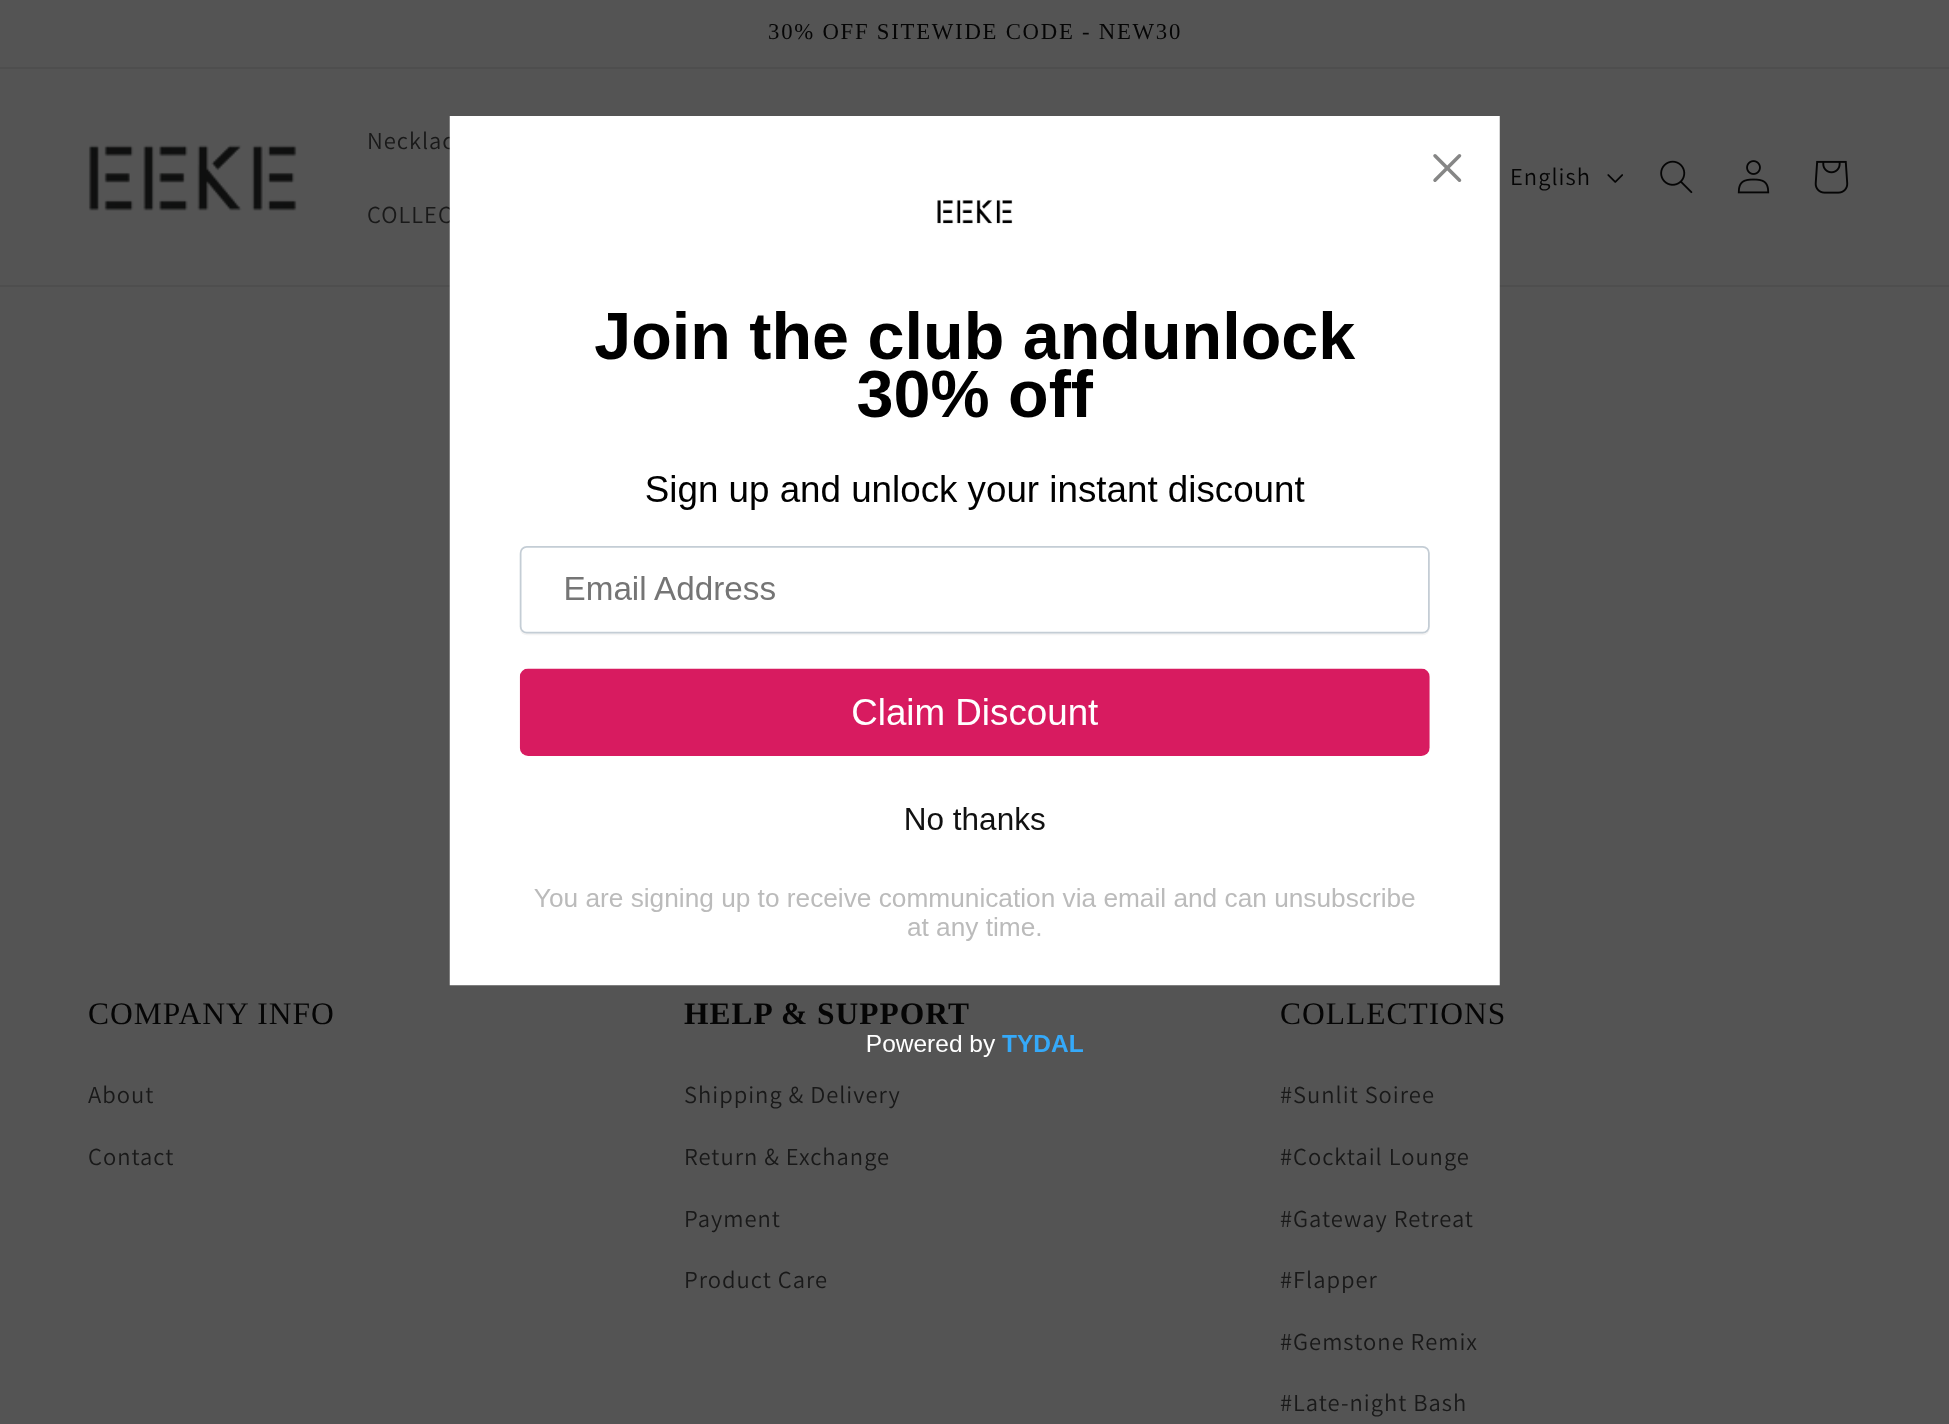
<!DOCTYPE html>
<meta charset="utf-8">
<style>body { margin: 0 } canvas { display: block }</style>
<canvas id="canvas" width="1949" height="1424"></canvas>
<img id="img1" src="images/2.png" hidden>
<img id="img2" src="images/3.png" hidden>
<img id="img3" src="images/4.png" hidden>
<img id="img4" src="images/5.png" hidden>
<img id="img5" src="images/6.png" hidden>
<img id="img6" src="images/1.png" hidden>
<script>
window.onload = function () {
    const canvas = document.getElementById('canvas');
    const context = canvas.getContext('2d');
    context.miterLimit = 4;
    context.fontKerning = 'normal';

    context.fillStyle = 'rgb(255, 255, 255)';
    context.fillRect(0, 0, 1949, 1424);
    context.fillStyle = 'rgb(236, 236, 236)';
    context.fillRect(0, 67, 1949, 2);
    context.fillRect(0, 285, 1949, 2);
    context.drawImage(document.getElementById('img1'), 88, 145, 209, 66);
    context.drawImage(document.getElementById('img2'), 1607, 174, 16, 9);
    context.drawImage(document.getElementById('img3'), 1660, 160, 33, 34);
    context.drawImage(document.getElementById('img4'), 1737, 160, 33, 34);
    context.drawImage(document.getElementById('img5'), 1814, 160, 35, 34);
    context.letterSpacing = '1.75px';
    context.font = '22.75px Liberation Serif';
    context.fillStyle = 'rgb(18, 18, 18)';
    context.fillText('30% OFF SITEWIDE CODE - NEW30', 768, 39);
    context.letterSpacing = '1px';
    context.font = '24.5px Assistant';
    context.fillStyle = 'rgb(77, 77, 77)';
    context.fillText('Necklac', 367, 149);
    context.fillText('COLLEC', 367, 223);
    context.fillStyle = 'rgb(18, 18, 18)';
    context.fillText('English', 1510, 185);
    context.font = '31.5px Liberation Serif';
    context.fillText('COMPANY INFO', 88, 1024);
    context.font = '24.5px Assistant';
    context.fillStyle = 'rgb(77, 77, 77)';
    context.fillText('About', 88, 1103);
    context.fillText('Contact', 88, 1165);
    context.font = 'bold 31.5px Liberation Serif';
    context.fillStyle = 'rgb(18, 18, 18)';
    context.fillText('HELP & SUPPORT', 684, 1024);
    context.font = '24.5px Assistant';
    context.fillStyle = 'rgb(77, 77, 77)';
    context.fillText('Shipping & Delivery', 684, 1103);
    context.fillText('Return & Exchange', 684, 1165);
    context.fillText('Payment', 684, 1227);
    context.fillText('Product Care', 684, 1288);
    context.font = '31.5px Liberation Serif';
    context.fillStyle = 'rgb(18, 18, 18)';
    context.fillText('COLLECTIONS', 1280, 1024);
    context.font = '24.5px Assistant';
    context.fillStyle = 'rgb(77, 77, 77)';
    context.fillText('#Sunlit Soiree', 1280, 1103);
    context.fillText('#Cocktail Lounge', 1280, 1165);
    context.fillText('#Gateway Retreat', 1280, 1227);
    context.fillText('#Flapper', 1280, 1288);
    context.fillText('#Gemstone Remix', 1280, 1350);
    context.fillText('#Late-night Bash', 1280, 1411);
    context.drawImage(document.getElementById('img6'), 0, 0, 1949, 1424);
};
</script>
